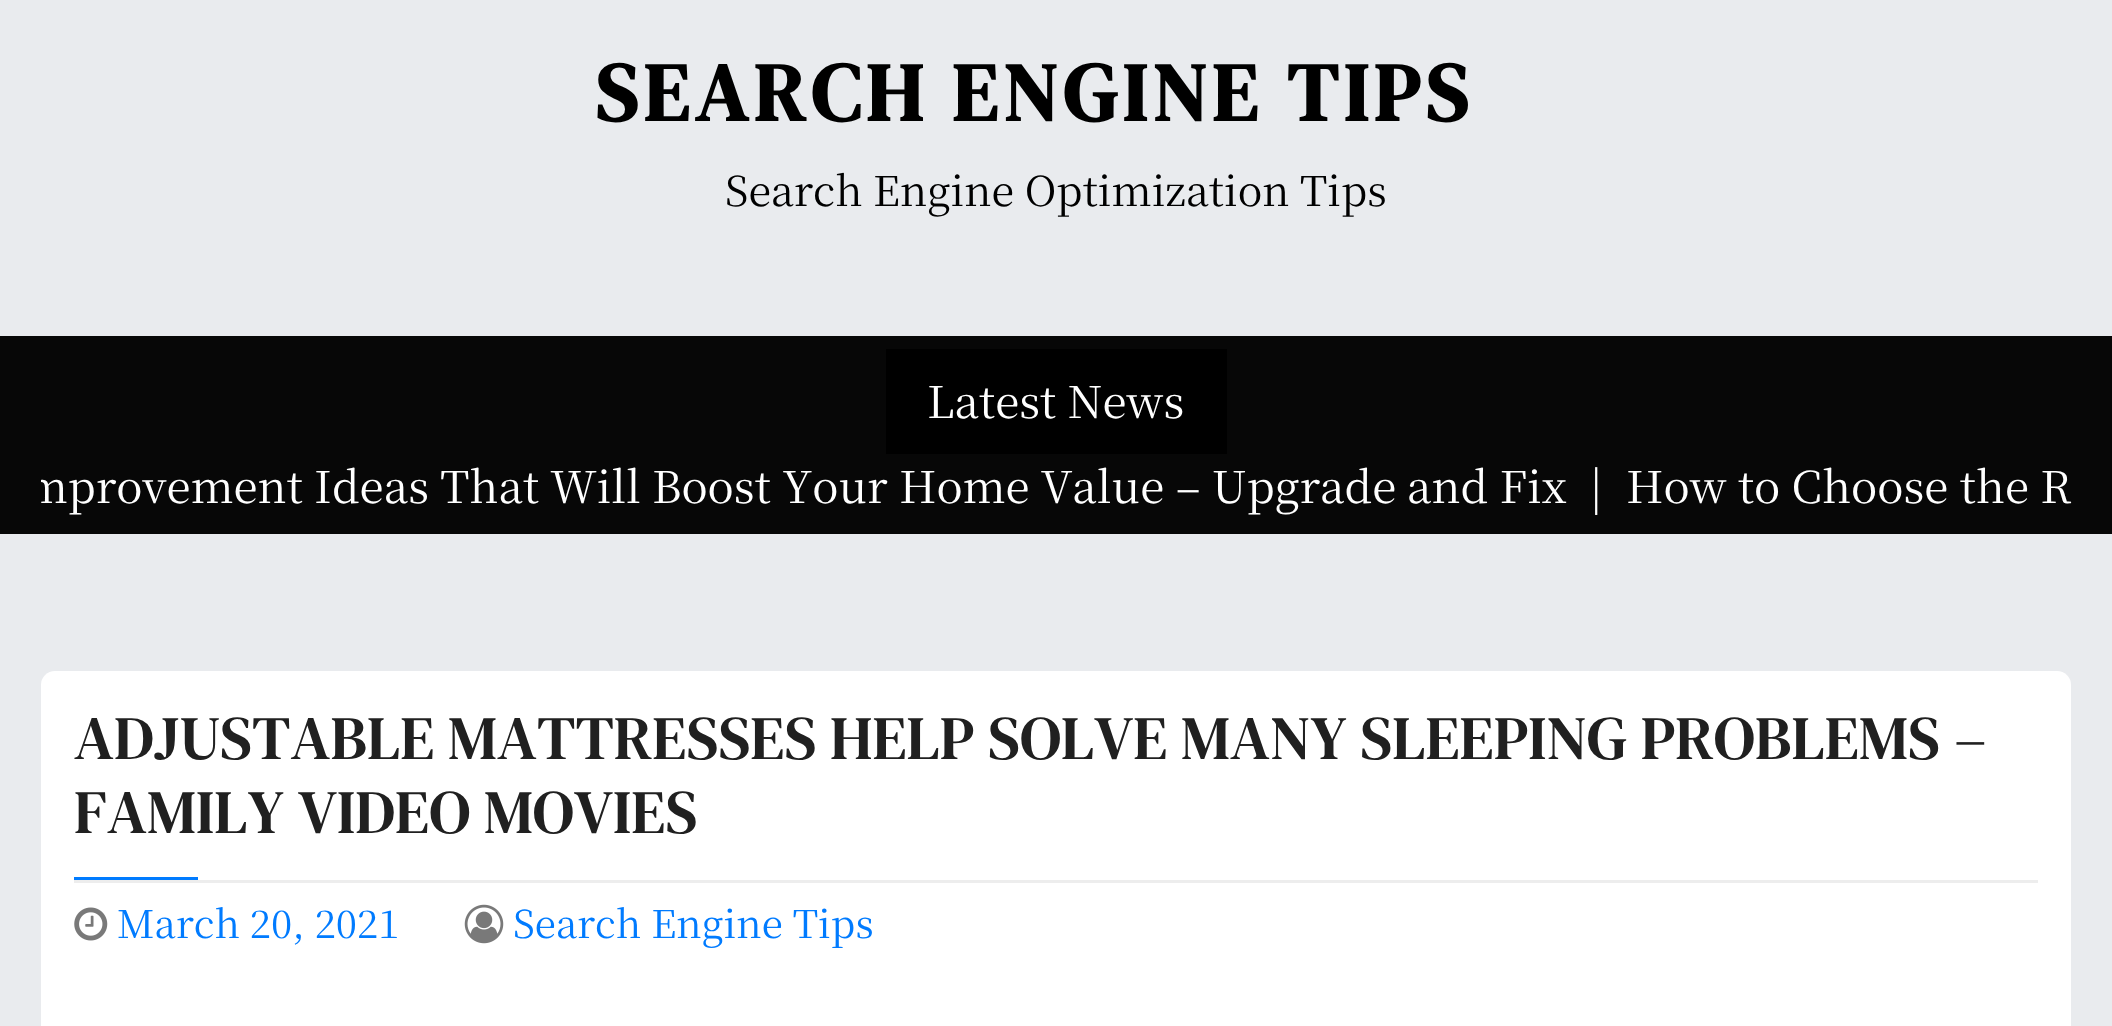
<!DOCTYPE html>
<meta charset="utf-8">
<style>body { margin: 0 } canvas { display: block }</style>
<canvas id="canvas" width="2112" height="1026"></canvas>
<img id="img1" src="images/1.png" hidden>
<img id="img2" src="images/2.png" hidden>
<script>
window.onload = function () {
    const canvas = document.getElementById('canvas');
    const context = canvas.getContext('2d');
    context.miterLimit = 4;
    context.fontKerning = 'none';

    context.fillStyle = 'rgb(233, 235, 238)';
    context.fillRect(0, 0, 2112, 1026);
    context.fillStyle = 'rgb(7, 7, 7)';
    context.fillRect(0, 336, 2112, 198);
    context.fillStyle = 'rgb(0, 0, 0)';
    context.fillRect(886, 349, 341, 105);
    context.fillStyle = 'rgb(255, 255, 255)';
    context.beginPath();
    context.roundRect(41, 671, 2030, 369, 14);
    context.fill();
    context.fillStyle = 'rgb(237, 237, 237)';
    context.fillRect(74, 880, 1964, 3);
    context.fillStyle = 'rgb(0, 123, 255)';
    context.fillRect(74, 877, 124, 3);
    context.drawImage(document.getElementById('img1'), 74, 907, 34, 34);
    context.drawImage(document.getElementById('img2'), 464, 904, 40, 40);
    context.letterSpacing = '5.5px';
    context.font = 'bold 82.5px DM Serif Text';
    context.fillStyle = 'rgb(0, 0, 0)';
    context.fillText('SEARCH ENGINE TIPS', 595, 121);
    context.letterSpacing = '0px';
    context.font = '41.25px Noto Serif TC';
    context.fillText('Search Engine Optimization Tips', 725, 206);
    context.font = '44px Noto Serif TC';
    context.fillStyle = 'rgb(255, 255, 255)';
    context.fillText('Latest News', 927, 418);
    context.save();
    context.beginPath();
    context.rect(41, 454, 2030, 66);
    context.clip();
    context.fillText('mprovement Ideas That Will Boost Your', 25, 503);
    context.fillText('Home Value – Upgrade', 899, 503);
    context.fillText('and Fix  |', 1407, 503);
    context.restore();
    context.fillText('How to Choose the R', 1626, 503);
    context.font = '61.6px DM Serif Text';
    context.fillStyle = 'rgb(32, 32, 32)';
    context.fillText('ADJUSTABLE', 74, 759);
    context.fillText('MATTRESSES HELP SOLVE', 448, 759);
    context.fillText('MANY SLEEPING PROBLEMS', 1181, 759);
    context.fillText('–', 1954, 759);
    context.fillText('FAMILY', 74, 833);
    context.fillText('VIDEO MOVIES', 298, 833);
    context.font = '38.5px Noto Serif TC';
    context.fillStyle = 'rgb(0, 123, 255)';
    context.fillText('March 20, 2021', 117, 938);
    context.fillText('Search Engine Tips', 513, 938);
};
</script>
